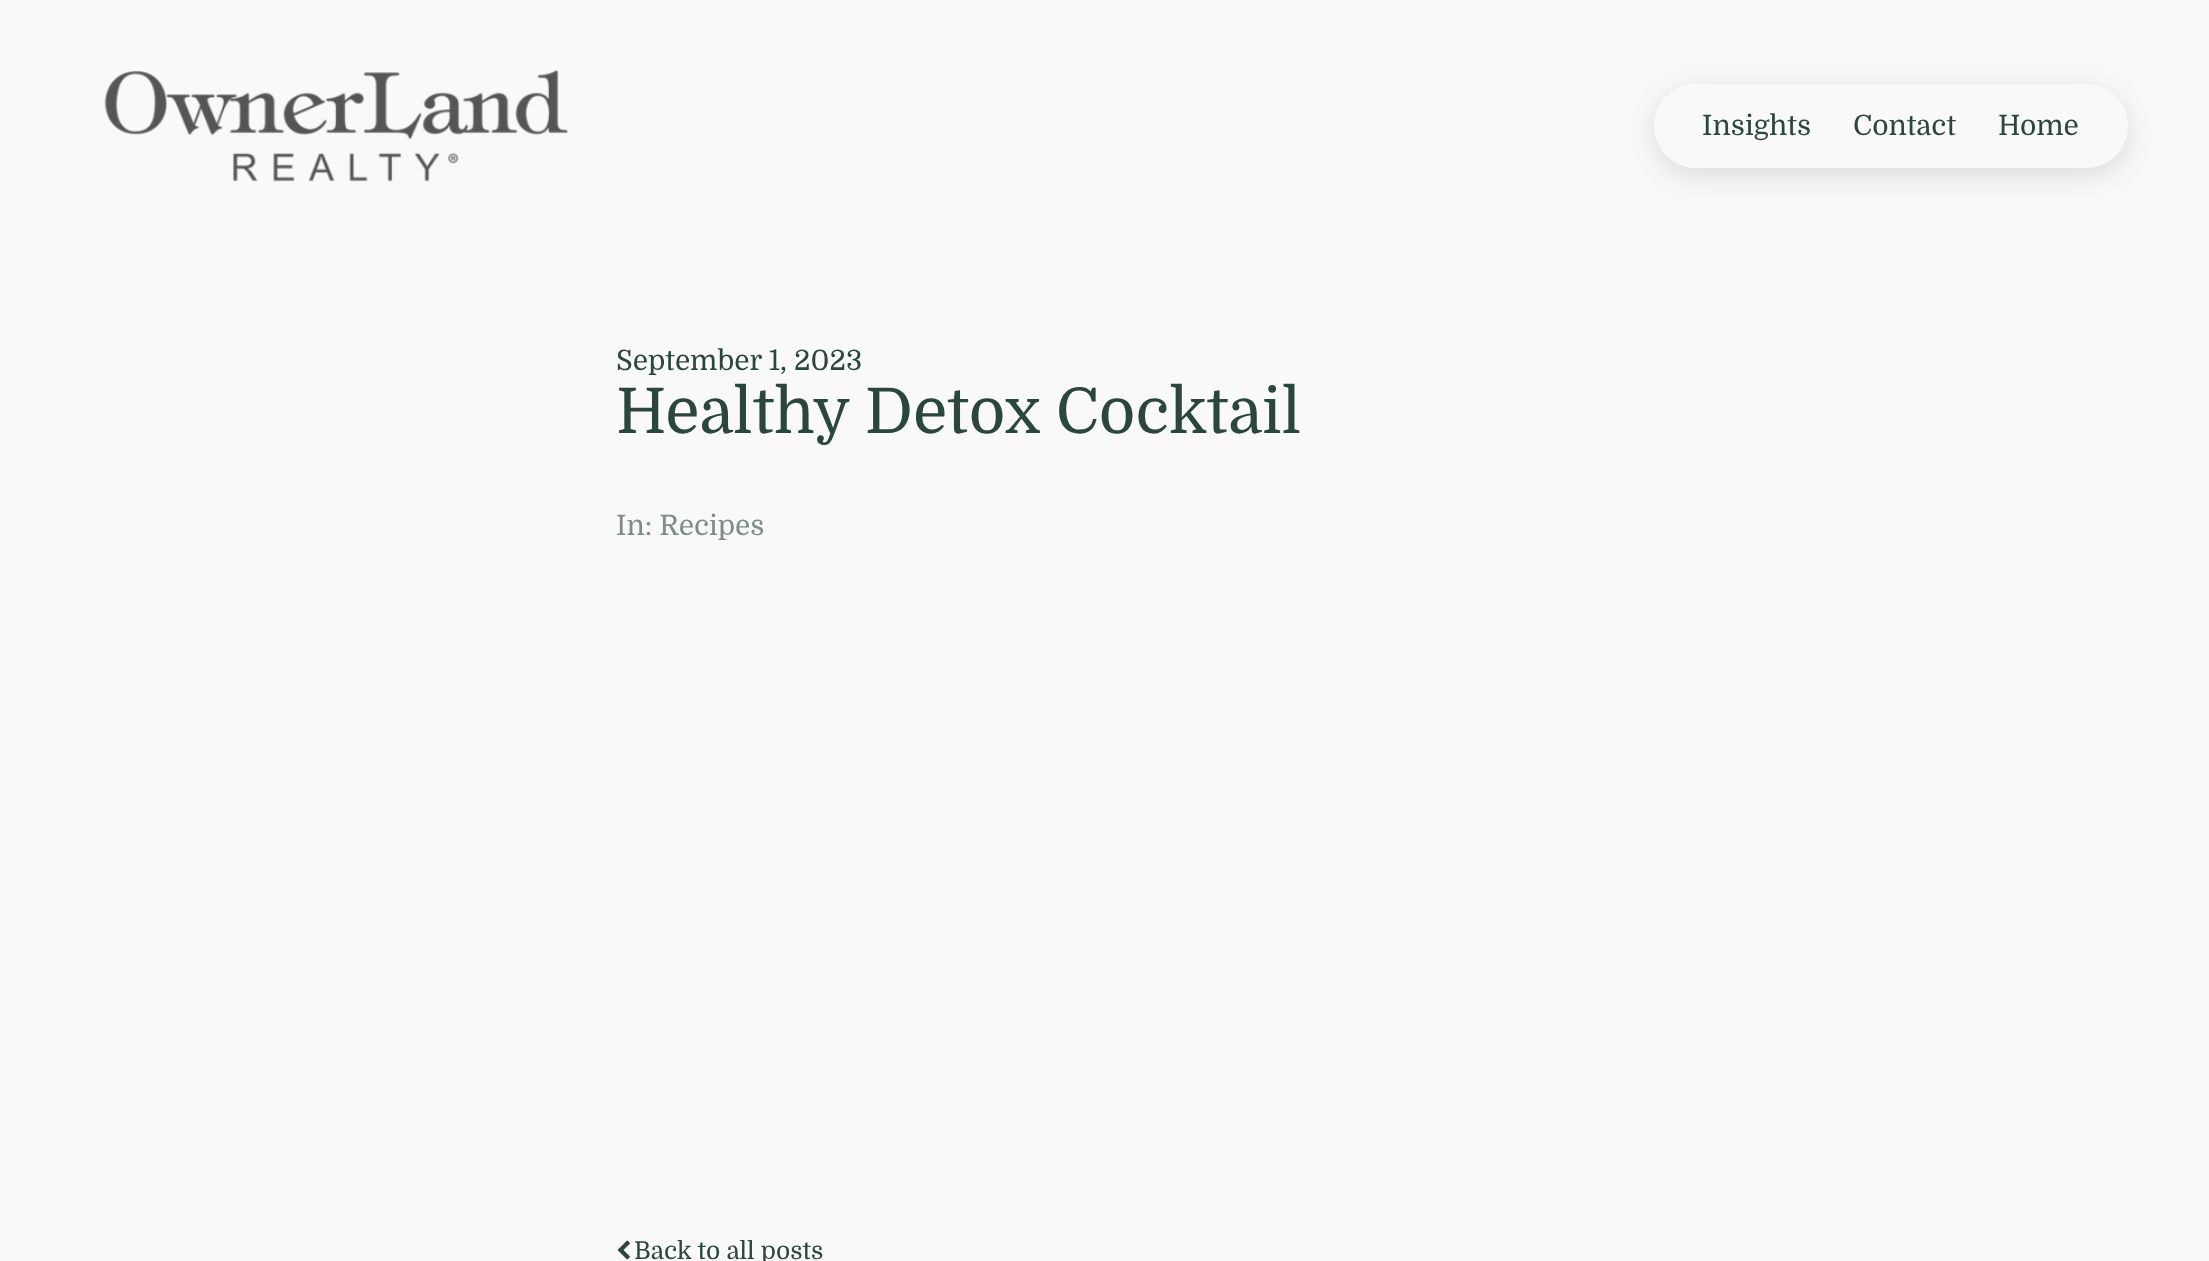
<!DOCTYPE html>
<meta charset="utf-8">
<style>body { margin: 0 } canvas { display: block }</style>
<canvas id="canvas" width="2209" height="1261"></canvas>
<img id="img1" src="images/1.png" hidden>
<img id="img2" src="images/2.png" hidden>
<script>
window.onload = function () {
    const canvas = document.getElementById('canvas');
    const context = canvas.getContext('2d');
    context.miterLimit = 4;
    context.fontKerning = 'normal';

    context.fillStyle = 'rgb(249, 249, 249)';
    context.fillRect(0, 0, 2209, 1261);
    context.drawImage(document.getElementById('img1'), 104, 70, 464, 112);
    context.save();
    context.beginPath();
    context.moveTo(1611, 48);
    context.lineTo(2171, 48);
    context.lineTo(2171, 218);
    context.lineTo(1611, 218);
    context.closePath();
    context.moveTo(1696, 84);
    context.lineTo(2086, 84);
    context.bezierCurveTo(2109, 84, 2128, 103, 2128, 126);
    context.bezierCurveTo(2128, 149, 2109, 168, 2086, 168);
    context.lineTo(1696, 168);
    context.bezierCurveTo(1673, 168, 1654, 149, 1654, 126);
    context.bezierCurveTo(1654, 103, 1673, 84, 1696, 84);
    context.closePath();
    context.clip('evenodd');
    context.fillStyle = 'rgba(0, 0, 0, 0.12)';
    context.filter = 'blur(14px)';
    context.beginPath();
    context.roundRect(1654, 91, 474, 84, 42);
    context.fill();
    context.filter = 'none';
    context.restore();
    context.drawImage(document.getElementById('img2'), 617, 1240, 13, 20);
    context.font = '28px Domine';
    context.fillStyle = 'rgb(43, 70, 62)';
    context.fillText('Insights', 1702, 135);
    context.fillText('Contact', 1853, 135);
    context.fillText('Home', 1998, 135);
    context.fillText('September 1, 2023', 616, 370);
    context.font = '63px Domine';
    context.fillText('Healthy Detox Cocktail', 616, 433);
    context.font = '28px Domine';
    context.fillStyle = 'rgb(125, 142, 137)';
    context.fillText('In: Recipes', 616, 535);
    context.font = '24.5px Domine';
    context.fillStyle = 'rgb(43, 70, 62)';
    context.fillText('Back to all posts', 634, 1259);
};
</script>
